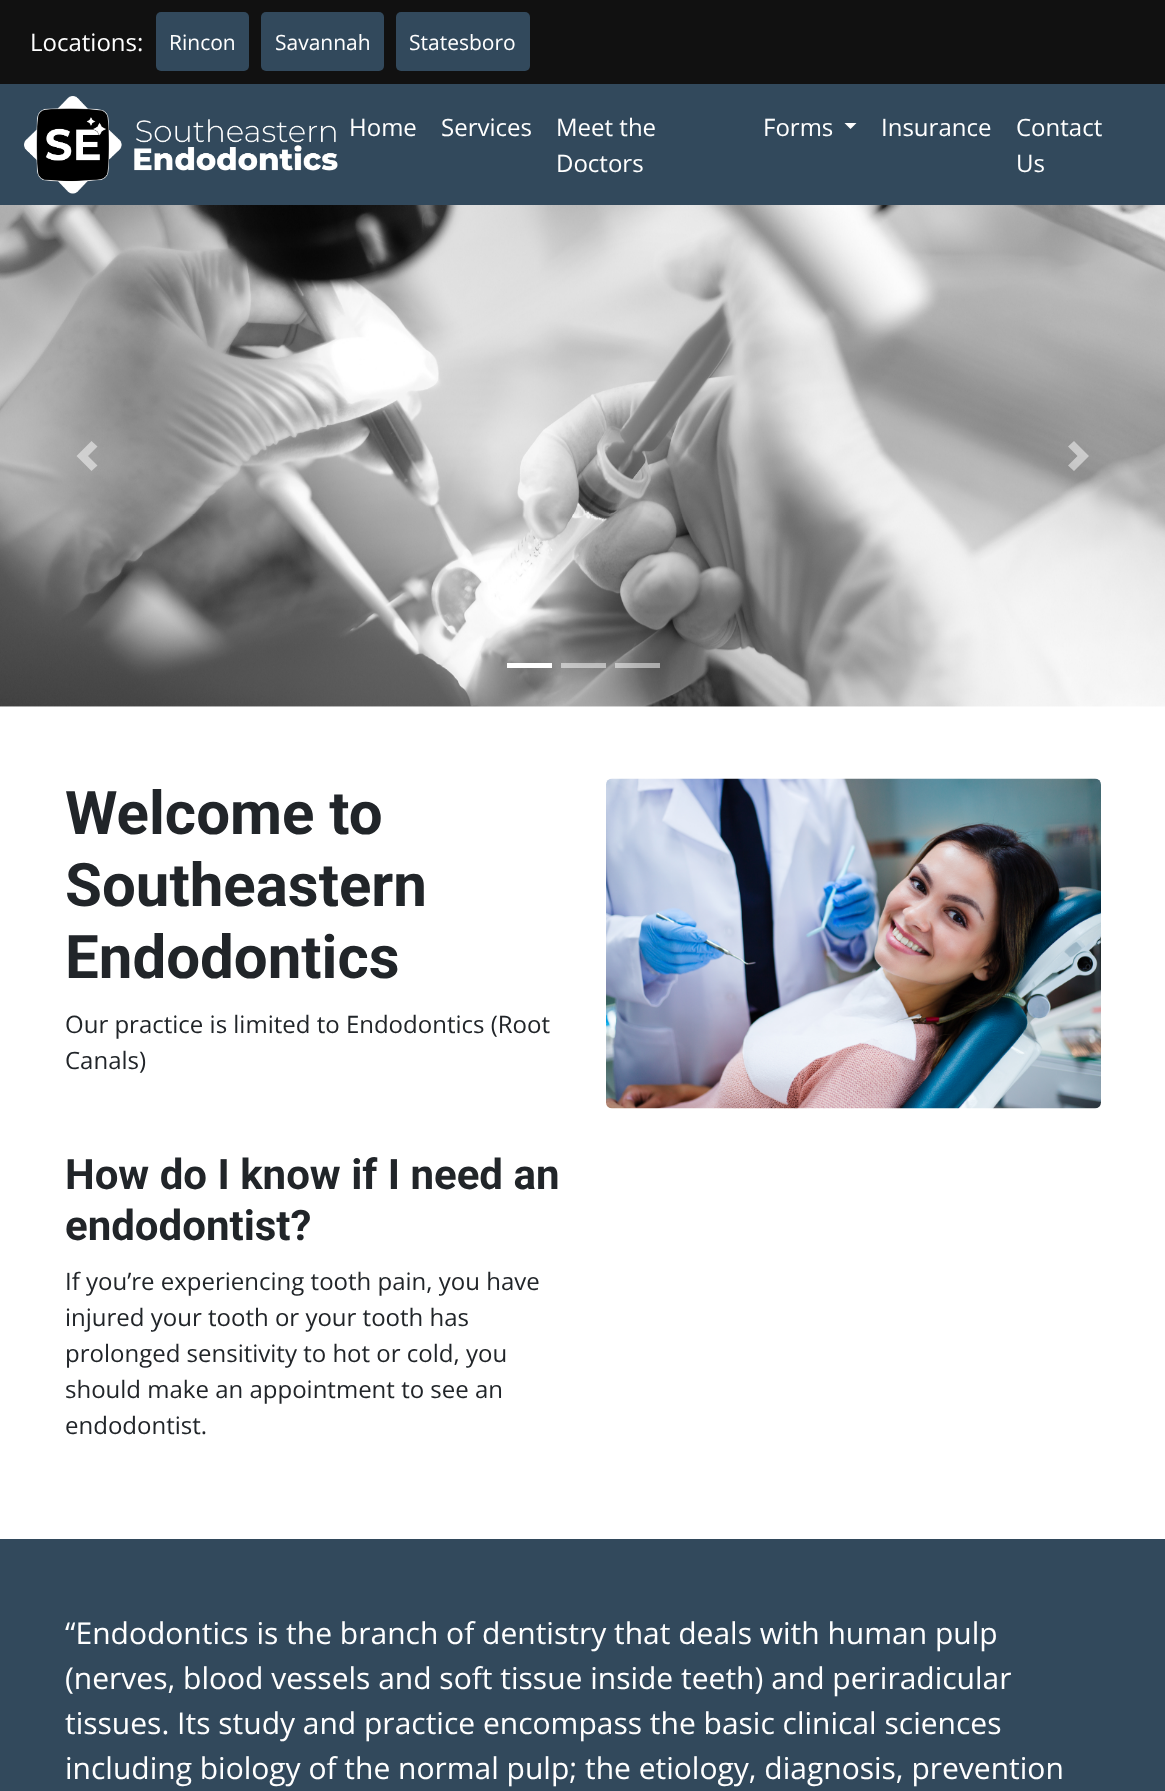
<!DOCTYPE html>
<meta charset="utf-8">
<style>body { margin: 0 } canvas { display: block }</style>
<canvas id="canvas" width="1165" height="1791"></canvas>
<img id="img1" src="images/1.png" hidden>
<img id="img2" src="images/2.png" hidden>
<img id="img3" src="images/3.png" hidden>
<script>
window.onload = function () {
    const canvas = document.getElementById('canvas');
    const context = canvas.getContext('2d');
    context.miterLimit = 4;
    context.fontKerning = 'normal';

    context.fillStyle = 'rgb(255, 255, 255)';
    context.fillRect(0, 0, 1165, 1791);
    context.fillStyle = 'rgb(17, 17, 17)';
    context.fillRect(0, 0, 1165, 84);
    context.fillStyle = 'rgb(50, 73, 92)';
    context.beginPath();
    context.roundRect(156, 12, 93, 59, 5);
    context.fill();
    context.beginPath();
    context.roundRect(261, 12, 123, 59, 5);
    context.fill();
    context.beginPath();
    context.roundRect(396, 12, 134, 59, 5);
    context.fill();
    context.fillRect(0, 84, 1165, 121);
    context.drawImage(document.getElementById('img1'), 24, 96, 314, 98);
    context.fillStyle = 'rgb(255, 255, 255)';
    context.beginPath();
    context.moveTo(844.5, 123);
    context.lineTo(856.5, 123);
    context.lineTo(850.5, 129);
    context.closePath();
    context.fill();
    context.drawImage(document.getElementById('img2'), 0, 205, 1165, 502);
    context.fillStyle = 'rgba(255, 255, 255, 0.5)';
    context.beginPath();
    context.moveTo(91.5, 441);
    context.lineTo(76.5, 456);
    context.lineTo(91.5, 471);
    context.lineTo(97.5, 465.5);
    context.lineTo(88, 456);
    context.lineTo(97.5, 446.5);
    context.closePath();
    context.fill();
    context.beginPath();
    context.moveTo(1074, 441);
    context.lineTo(1068, 446.5);
    context.lineTo(1077.5, 456);
    context.lineTo(1068, 465.5);
    context.lineTo(1074, 471);
    context.lineTo(1089, 456);
    context.closePath();
    context.fill();
    context.fillStyle = 'rgb(255, 255, 255)';
    context.fillRect(507, 663, 45, 5);
    context.fillStyle = 'rgba(255, 255, 255, 0.5)';
    context.fillRect(561, 663, 45, 5);
    context.fillRect(615, 663, 45, 5);
    context.drawImage(document.getElementById('img3'), 606, 778, 495, 331);
    context.fillStyle = 'rgb(50, 73, 92)';
    context.fillRect(0, 1539, 1165, 252);
    context.font = '24px Open Sans';
    context.fillStyle = 'rgb(255, 255, 255)';
    context.fillText('Locations:', 30, 51);
    context.font = '21px Open Sans';
    context.fillText('Rincon', 169, 50);
    context.fillText('Savannah', 275, 50);
    context.fillText('Statesboro', 409, 50);
    context.font = '24px Open Sans';
    context.fillText('Home', 349, 136);
    context.fillText('Services', 441, 136);
    context.fillText('Meet the', 556, 136);
    context.fillText('Doctors', 556, 172);
    context.fillText('Forms', 763, 136);
    context.fillText('Insurance', 881, 136);
    context.fillText('Contact', 1016, 136);
    context.fillText('Us', 1016, 172);
    context.font = 'bold 60px Roboto';
    context.fillStyle = 'rgb(33, 37, 41)';
    context.fillText('Welcome to', 65, 834);
    context.fillText('Southeastern', 65, 906);
    context.fillText('Endodontics', 65, 978);
    context.font = '24px Open Sans';
    context.fillText('Our practice is limited to Endodontics (Root', 65, 1033);
    context.fillText('Canals)', 65, 1069);
    context.font = 'bold 42px Roboto';
    context.fillText('How do I know if I need an', 65, 1189);
    context.fillText('endodontist?', 65, 1240);
    context.font = '24px Open Sans';
    context.fillText('If you’re experiencing tooth pain, you have', 65, 1290);
    context.fillText('injured your tooth or your tooth has', 65, 1326);
    context.fillText('prolonged sensitivity to hot or cold, you', 65, 1362);
    context.fillText('should make an appointment to see an', 65, 1398);
    context.fillText('endodontist.', 65, 1434);
    context.font = '30px Open Sans';
    context.fillStyle = 'rgb(255, 255, 255)';
    context.fillText('“Endodontics is the branch of dentistry that deals with human pulp', 65, 1644);
    context.fillText('(nerves, blood vessels and soft tissue inside teeth) and periradicular', 65, 1689);
    context.fillText('tissues. Its study and practice encompass the basic clinical sciences', 65, 1734);
    context.fillText('including biology of the normal pulp; the etiology, diagnosis, prevention', 65, 1779);
};
</script>
